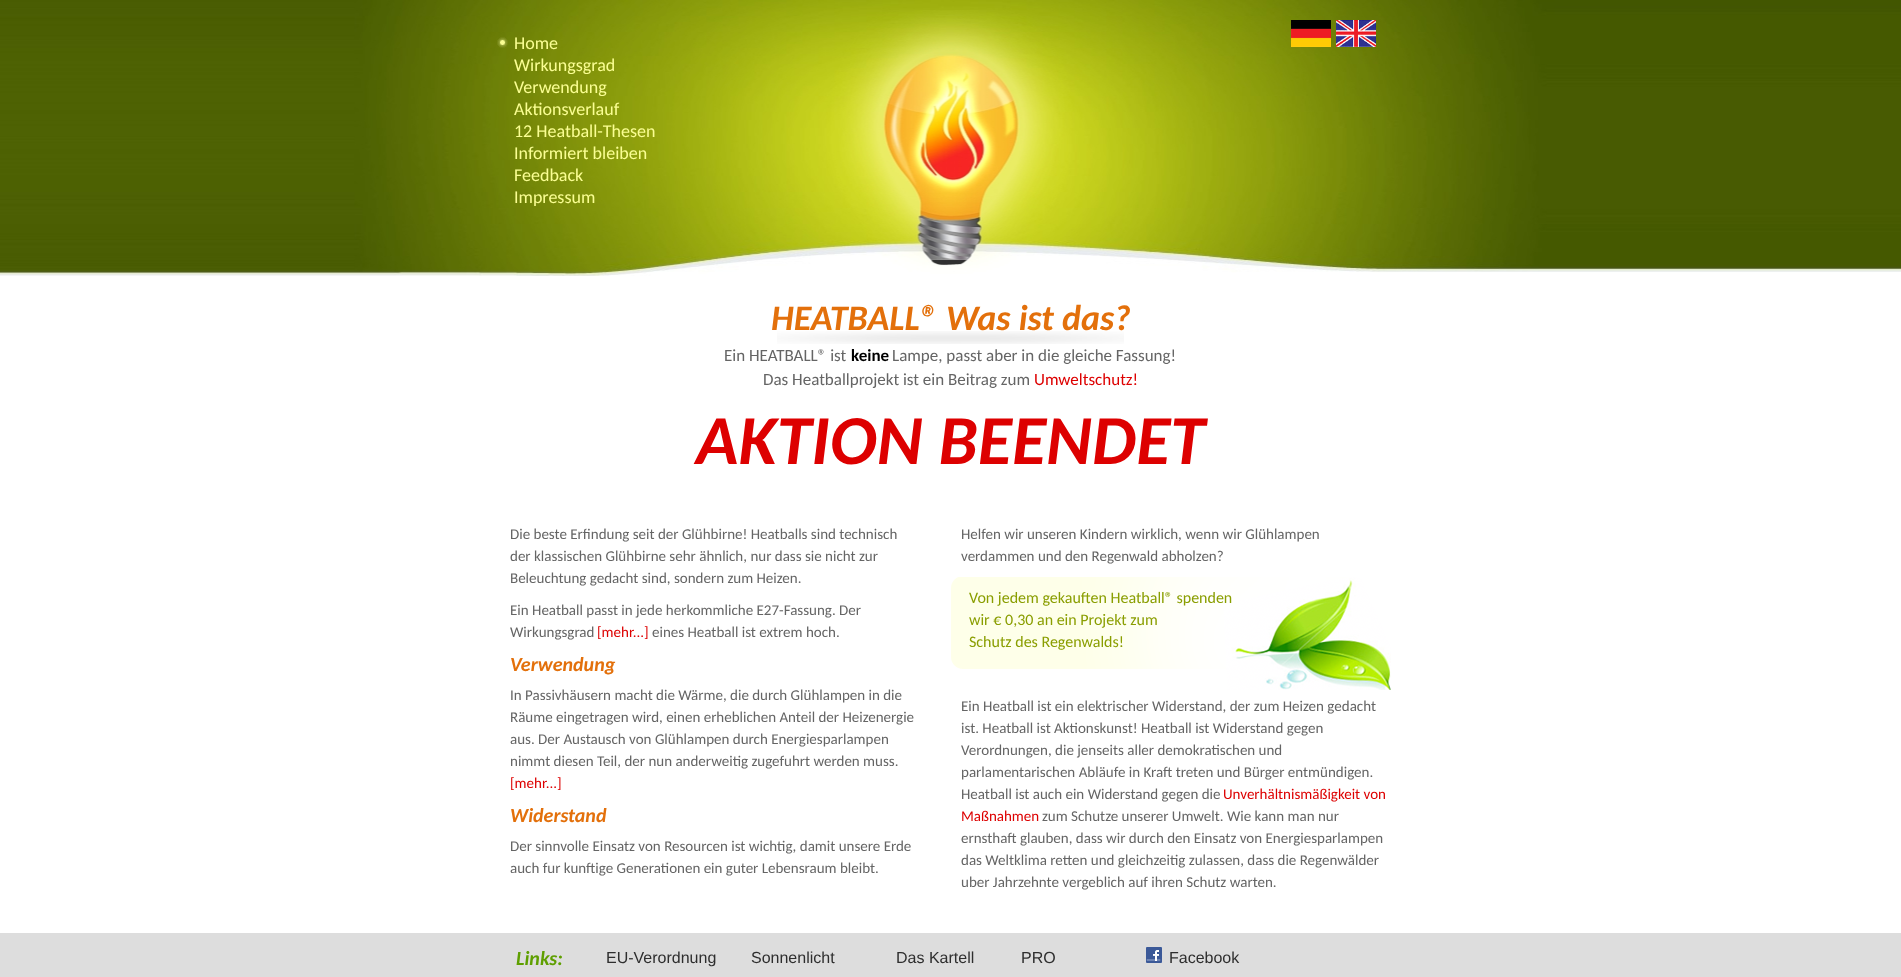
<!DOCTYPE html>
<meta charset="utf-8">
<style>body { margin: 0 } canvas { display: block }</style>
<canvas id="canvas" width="1901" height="977"></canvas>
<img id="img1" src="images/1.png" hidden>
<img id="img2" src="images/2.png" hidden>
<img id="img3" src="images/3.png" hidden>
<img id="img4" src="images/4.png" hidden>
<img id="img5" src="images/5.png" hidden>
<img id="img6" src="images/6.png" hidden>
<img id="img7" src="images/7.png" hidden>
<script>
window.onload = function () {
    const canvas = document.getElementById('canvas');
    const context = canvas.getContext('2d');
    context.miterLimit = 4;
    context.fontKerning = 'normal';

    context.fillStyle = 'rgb(255, 255, 255)';
    context.fillRect(0, 0, 1901, 977);
    context.drawImage(document.getElementById('img1'), 0, 0, 1901, 276);
    context.drawImage(document.getElementById('img2'), 1291, 20, 40, 27);
    context.drawImage(document.getElementById('img3'), 1336, 20, 40, 27);
    context.drawImage(document.getElementById('img4'), 497, 37, 11, 11);
    context.drawImage(document.getElementById('img5'), 777, 331, 347, 13);
    context.drawImage(document.getElementById('img6'), 951, 577, 440, 113);
    context.fillStyle = 'rgb(221, 221, 221)';
    context.fillRect(0, 933, 1901, 44);
    context.drawImage(document.getElementById('img7'), 1146, 947, 16, 16);
    context.font = '18px Carlito';
    context.fillStyle = 'rgb(250, 254, 147)';
    context.fillText('Home', 514, 49);
    context.fillText('Wirkungsgrad', 514, 71);
    context.fillText('Verwendung', 514, 93);
    context.fillText('Aktionsverlauf', 514, 115);
    context.fillText('12 Heatball-Thesen', 514, 137);
    context.fillText('Informiert bleiben', 514, 159);
    context.fillText('Feedback', 514, 181);
    context.fillText('Impressum', 514, 203);
    context.font = 'italic bold 36px Carlito';
    context.fillStyle = 'rgb(227, 112, 11)';
    context.fillText('HEATBALL® Was ist das?', 771, 330);
    context.font = '17px Carlito';
    context.fillStyle = 'rgb(101, 101, 101)';
    context.fillText('Ein HEATBALL® ist', 724, 361);
    context.font = 'bold 17px Carlito';
    context.fillStyle = 'rgb(0, 0, 0)';
    context.fillText('keine', 851, 361);
    context.font = '17px Carlito';
    context.fillStyle = 'rgb(101, 101, 101)';
    context.fillText('Lampe, passt aber in die gleiche Fassung!', 892, 361);
    context.fillText('Das Heatballprojekt ist ein Beitrag zum', 763, 385);
    context.fillStyle = 'rgb(221, 0, 0)';
    context.fillText('Umweltschutz!', 1034, 385);
    context.font = 'italic bold 70px Carlito';
    context.fillText('AKTION BEENDET', 696, 464);
    context.font = '15px Carlito';
    context.fillStyle = 'rgb(101, 101, 101)';
    context.fillText('Die beste Erfindung seit der Glühbirne! Heatballs sind technisch', 510, 539);
    context.fillText('der klassischen Glühbirne sehr ähnlich, nur dass sie nicht zur', 510, 561);
    context.fillText('Beleuchtung gedacht sind, sondern zum Heizen.', 510, 583);
    context.fillText('Ein Heatball passt in jede herkommliche E27-Fassung. Der', 510, 615);
    context.fillText('Wirkungsgrad', 510, 637);
    context.fillStyle = 'rgb(221, 0, 0)';
    context.fillText('[mehr...]', 597, 637);
    context.fillStyle = 'rgb(101, 101, 101)';
    context.fillText('eines Heatball ist extrem hoch.', 652, 637);
    context.font = 'italic bold 20px Carlito';
    context.fillStyle = 'rgb(227, 112, 11)';
    context.fillText('Verwendung', 510, 671);
    context.font = '15px Carlito';
    context.fillStyle = 'rgb(101, 101, 101)';
    context.fillText('In Passivhäusern macht die Wärme, die durch Glühlampen in die', 510, 700);
    context.fillText('Räume eingetragen wird, einen erheblichen Anteil der Heizenergie', 510, 722);
    context.fillText('aus. Der Austausch von Glühlampen durch Energiesparlampen', 510, 744);
    context.fillText('nimmt diesen Teil, der nun anderweitig zugefuhrt werden muss.', 510, 766);
    context.fillStyle = 'rgb(221, 0, 0)';
    context.fillText('[mehr...]', 510, 788);
    context.font = 'italic bold 20px Carlito';
    context.fillStyle = 'rgb(227, 112, 11)';
    context.fillText('Widerstand', 510, 822);
    context.font = '15px Carlito';
    context.fillStyle = 'rgb(101, 101, 101)';
    context.fillText('Der sinnvolle Einsatz von Resourcen ist wichtig, damit unsere Erde', 510, 851);
    context.fillText('auch fur kunftige Generationen ein guter Lebensraum bleibt.', 510, 873);
    context.fillText('Helfen wir unseren Kindern wirklich, wenn wir Glühlampen', 961, 539);
    context.fillText('verdammen und den Regenwald abholzen?', 961, 561);
    context.font = '16px Carlito';
    context.fillStyle = 'rgb(138, 158, 1)';
    context.fillText('Von jedem gekauften Heatball® spenden', 969, 603);
    context.fillText('wir € 0,30 an ein Projekt zum', 969, 625);
    context.fillText('Schutz des Regenwalds!', 969, 647);
    context.font = '15px Carlito';
    context.fillStyle = 'rgb(101, 101, 101)';
    context.fillText('Ein Heatball ist ein elektrischer Widerstand, der zum Heizen gedacht', 961, 711);
    context.fillText('ist. Heatball ist Aktionskunst! Heatball ist Widerstand gegen', 961, 733);
    context.fillText('Verordnungen, die jenseits aller demokratischen und', 961, 755);
    context.fillText('parlamentarischen Abläufe in Kraft treten und Bürger entmündigen.', 961, 777);
    context.fillText('Heatball ist auch ein Widerstand gegen die', 961, 799);
    context.fillStyle = 'rgb(221, 0, 0)';
    context.fillText('Unverhältnismäßigkeit von', 1223, 799);
    context.fillText('Maßnahmen', 961, 821);
    context.fillStyle = 'rgb(101, 101, 101)';
    context.fillText('zum Schutze unserer Umwelt. Wie kann man nur', 1042, 821);
    context.fillText('ernsthaft glauben, dass wir durch den Einsatz von Energiesparlampen', 961, 843);
    context.fillText('das Weltklima retten und gleichzeitig zulassen, dass die Regenwälder', 961, 865);
    context.fillText('uber Jahrzehnte vergeblich auf ihren Schutz warten.', 961, 887);
    context.font = 'italic bold 20px Carlito';
    context.fillStyle = 'rgb(94, 159, 0)';
    context.fillText('Links:', 516, 965);
    context.font = '16px Liberation Sans';
    context.fillStyle = 'rgb(46, 46, 46)';
    context.fillText('EU-Verordnung', 606, 963);
    context.fillText('Sonnenlicht', 751, 963);
    context.fillText('Das Kartell', 896, 963);
    context.fillText('PRO', 1021, 963);
    context.fillText('Facebook', 1169, 963);
};
</script>
